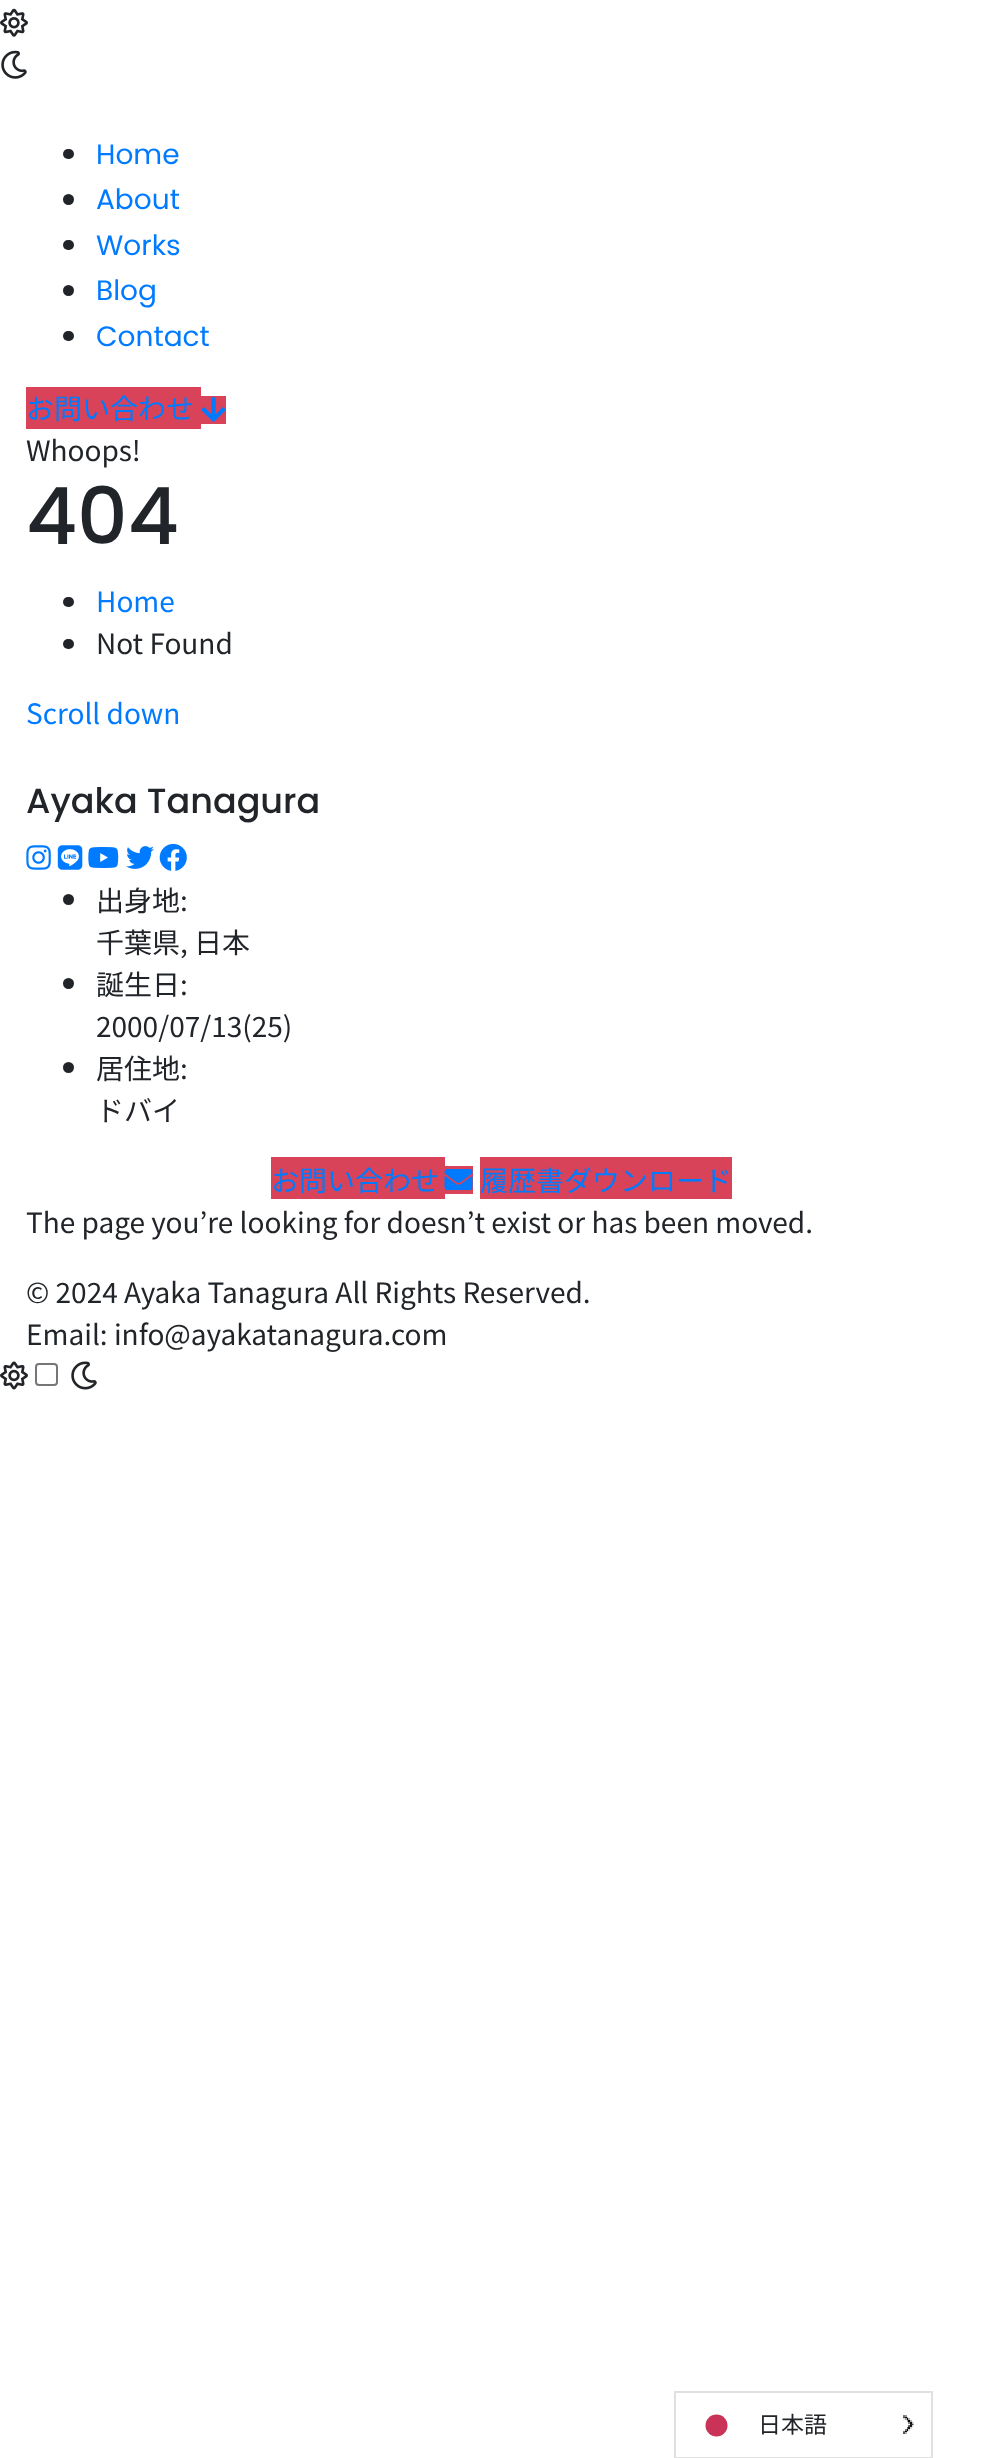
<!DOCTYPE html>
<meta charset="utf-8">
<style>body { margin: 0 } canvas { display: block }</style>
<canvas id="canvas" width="1002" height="2458"></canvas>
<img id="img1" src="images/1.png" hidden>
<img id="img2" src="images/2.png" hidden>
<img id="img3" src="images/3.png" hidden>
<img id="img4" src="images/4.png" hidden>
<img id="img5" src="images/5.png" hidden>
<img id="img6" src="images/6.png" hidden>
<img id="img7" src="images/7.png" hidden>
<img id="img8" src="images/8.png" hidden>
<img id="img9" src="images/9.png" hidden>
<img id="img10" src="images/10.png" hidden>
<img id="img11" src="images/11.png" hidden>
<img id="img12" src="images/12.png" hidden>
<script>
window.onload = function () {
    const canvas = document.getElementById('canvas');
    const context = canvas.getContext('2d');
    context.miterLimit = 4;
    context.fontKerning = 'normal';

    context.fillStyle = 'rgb(255, 255, 255)';
    context.fillRect(0, 0, 1002, 2458);
    context.drawImage(document.getElementById('img1'), 0, 8, 28, 29);
    context.drawImage(document.getElementById('img2'), 1, 50, 26, 29);
    context.fillStyle = 'rgb(33, 37, 41)';
    context.beginPath();
    context.roundRect(63, 149, 11, 10, 5);
    context.fill();
    context.beginPath();
    context.arc(68.5, 199.5, 5.5, 0, 2 * Math.PI);
    context.fill();
    context.beginPath();
    context.roundRect(63, 240, 11, 10, 5);
    context.fill();
    context.beginPath();
    context.arc(68.5, 290.5, 5.5, 0, 2 * Math.PI);
    context.fill();
    context.beginPath();
    context.roundRect(63, 331, 11, 10, 5);
    context.fill();
    context.fillStyle = 'rgb(217, 67, 89)';
    context.fillRect(26, 387, 175, 42);
    context.fillRect(201, 396, 25, 28);
    context.drawImage(document.getElementById('img3'), 201, 397, 25, 25);
    context.fillStyle = 'rgb(33, 37, 41)';
    context.beginPath();
    context.roundRect(63, 597, 11, 10, 5);
    context.fill();
    context.beginPath();
    context.roundRect(63, 639, 11, 10, 5);
    context.fill();
    context.drawImage(document.getElementById('img4'), 26, 845, 25, 25);
    context.drawImage(document.getElementById('img5'), 57, 845, 26, 25);
    context.drawImage(document.getElementById('img6'), 88, 847, 31, 21);
    context.drawImage(document.getElementById('img7'), 126, 846, 28, 23);
    context.drawImage(document.getElementById('img8'), 159, 843, 28, 28);
    context.beginPath();
    context.arc(68.5, 899.5, 5.5, 0, 2 * Math.PI);
    context.fill();
    context.beginPath();
    context.arc(68.5, 983.5, 5.5, 0, 2 * Math.PI);
    context.fill();
    context.beginPath();
    context.arc(68.5, 1067.5, 5.5, 0, 2 * Math.PI);
    context.fill();
    context.fillStyle = 'rgb(217, 67, 89)';
    context.fillRect(271, 1157, 174, 42);
    context.fillRect(445, 1166, 28, 28);
    context.drawImage(document.getElementById('img9'), 444, 1169, 29, 21);
    context.fillRect(480, 1157, 252, 42);
    context.drawImage(document.getElementById('img10'), 0, 1361, 28, 29);
    context.beginPath();
    context.roundRect(36, 1364, 21, 21, 3);
    context.strokeStyle = 'rgb(118, 118, 118)';
    context.lineWidth = 2;
    context.stroke();
    context.drawImage(document.getElementById('img11'), 71, 1361, 26, 29);
    context.strokeStyle = 'rgb(224, 224, 224)';
    context.strokeRect(675, 2392, 257, 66);
    context.fillStyle = 'rgb(201, 51, 87)';
    context.beginPath();
    context.arc(716.5, 2425.5, 11, 0, 2 * Math.PI);
    context.fill();
    context.drawImage(document.getElementById('img12'), 903, 2415, 11, 19);
    context.font = '28px Poppins';
    context.fillStyle = 'rgb(0, 123, 255)';
    context.fillText('Home', 96, 164);
    context.fillText('About', 96, 209);
    context.fillText('Works', 96, 255);
    context.fillText('Blog', 96, 300);
    context.fillText('Contact', 96, 346);
    context.font = '28px Noto Sans JP';
    context.fillText('お問い合わせ', 26, 419);
    context.fillStyle = 'rgb(33, 37, 41)';
    context.fillText('Whoops!', 26, 461);
    context.font = '500 79px Poppins';
    context.fillText('404', 26, 544);
    context.font = '28px Noto Sans JP';
    context.fillStyle = 'rgb(0, 123, 255)';
    context.fillText('Home', 96, 612);
    context.fillStyle = 'rgb(33, 37, 41)';
    context.fillText('Not Found', 96, 654);
    context.fillStyle = 'rgb(0, 123, 255)';
    context.fillText('Scroll down', 26, 724);
    context.font = '500 35px Poppins';
    context.fillStyle = 'rgb(33, 37, 41)';
    context.fillText('Ayaka Tanagura', 26, 813);
    context.font = '28px Noto Sans JP';
    context.fillText('出身地:', 96, 911);
    context.fillText('千葉県, 日本', 96, 953);
    context.fillText('誕生日:', 96, 995);
    context.fillText('2000/07/13(25)', 96, 1037);
    context.fillText('居住地:', 96, 1079);
    context.fillText('ドバイ', 96, 1121);
    context.fillStyle = 'rgb(0, 123, 255)';
    context.fillText('お問い合わせ', 271, 1191);
    context.fillText('履歴書ダウンロード', 480, 1191);
    context.fillStyle = 'rgb(33, 37, 41)';
    context.fillText('The page you’re looking for doesn’t exist or has been moved.', 26, 1233);
    context.fillText('© 2024 Ayaka Tanagura All Rights Reserved.', 26, 1303);
    context.fillText('Email: info@ayakatanagura.com', 26, 1345);
    context.font = '23px Noto Sans JP';
    context.fillText('日本語', 758, 2433);
};
</script>
